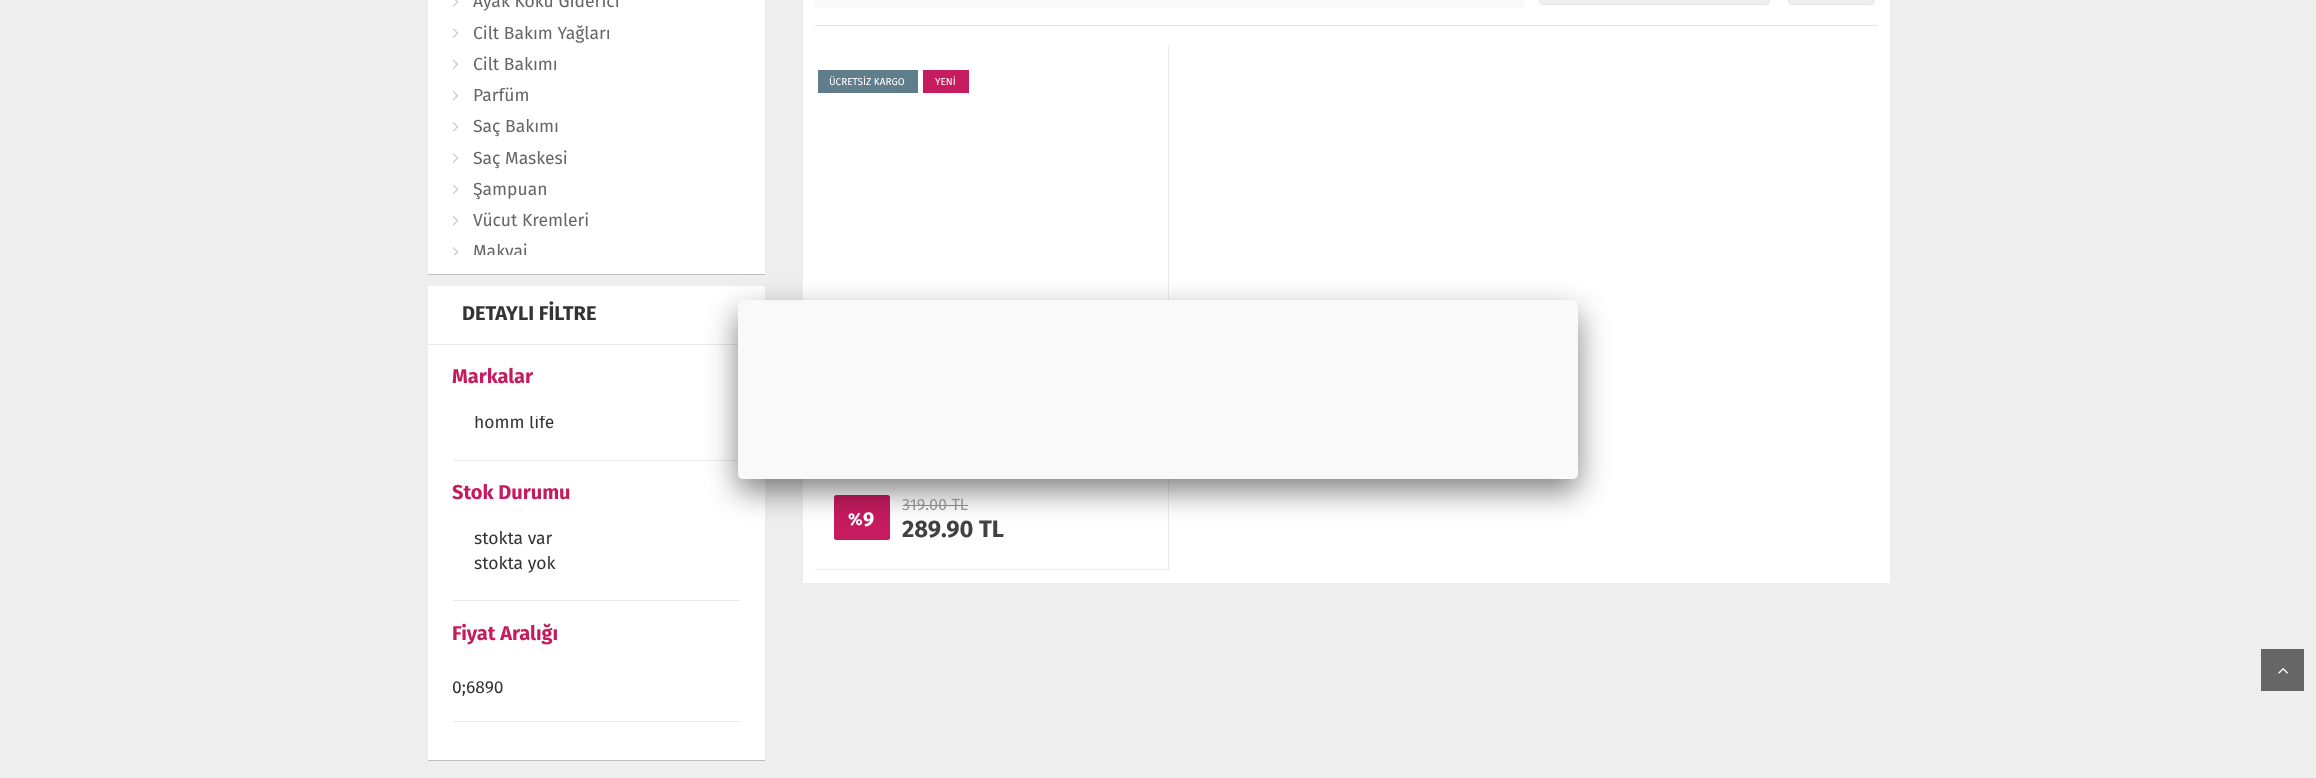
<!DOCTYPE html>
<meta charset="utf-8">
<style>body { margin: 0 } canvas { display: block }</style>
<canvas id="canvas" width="2316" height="778"></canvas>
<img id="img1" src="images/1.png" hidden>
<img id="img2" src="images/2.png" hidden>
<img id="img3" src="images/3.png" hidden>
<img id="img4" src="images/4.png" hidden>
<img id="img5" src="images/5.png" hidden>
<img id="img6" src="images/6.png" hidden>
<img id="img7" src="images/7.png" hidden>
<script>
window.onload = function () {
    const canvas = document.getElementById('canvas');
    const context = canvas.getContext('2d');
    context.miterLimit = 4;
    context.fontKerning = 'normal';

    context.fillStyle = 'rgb(238, 238, 238)';
    context.fillRect(0, 0, 2316, 778);
    context.fillStyle = 'rgba(0, 0, 0, 0.2)';
    context.filter = 'blur(0.5px)';
    context.beginPath();
    context.rect(428, -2, 337, 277);
    context.fill();
    context.filter = 'none';
    context.fillStyle = 'rgb(255, 255, 255)';
    context.fillRect(428, 0, 337, 274);
    context.drawImage(document.getElementById('img1'), 453, 0, 6, 7);
    context.drawImage(document.getElementById('img2'), 453, 28, 6, 10);
    context.drawImage(document.getElementById('img3'), 453, 59, 6, 11);
    context.drawImage(document.getElementById('img4'), 453, 90, 6, 11);
    context.drawImage(document.getElementById('img5'), 453, 122, 6, 10);
    context.drawImage(document.getElementById('img2'), 453, 153, 6, 10);
    context.drawImage(document.getElementById('img3'), 453, 184, 6, 11);
    context.drawImage(document.getElementById('img4'), 453, 215, 6, 11);
    context.drawImage(document.getElementById('img6'), 453, 247, 6, 8);
    context.fillStyle = 'rgba(0, 0, 0, 0.2)';
    context.filter = 'blur(0.5px)';
    context.beginPath();
    context.rect(428, 288, 337, 473);
    context.fill();
    context.filter = 'none';
    context.fillStyle = 'rgb(255, 255, 255)';
    context.fillRect(428, 286, 337, 474);
    context.fillStyle = 'rgb(234, 234, 234)';
    context.fillRect(428, 344, 310, 1);
    context.fillRect(453, 460, 287, 1);
    context.fillRect(453, 600, 287, 1);
    context.fillRect(453, 721, 287, 1);
    context.fillStyle = 'rgb(255, 255, 255)';
    context.fillRect(803, 0, 1087, 583);
    context.fillStyle = 'rgb(249, 249, 249)';
    context.fillRect(815, 0, 709, 8);
    context.fillStyle = 'rgb(239, 239, 239)';
    context.beginPath();
    context.roundRect(1539.5, -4.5, 230, 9, 3.5);
    context.fill();
    context.strokeStyle = 'rgb(228, 228, 228)';
    context.stroke();
    context.beginPath();
    context.roundRect(1788.5, -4.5, 86, 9, 3.5);
    context.fill();
    context.stroke();
    context.fillStyle = 'rgb(228, 228, 228)';
    context.fillRect(815, 25, 1063, 1);
    context.fillStyle = 'rgb(236, 236, 236)';
    context.fillRect(1168, 45, 1, 525);
    context.fillRect(815, 569, 354, 1);
    context.fillStyle = 'rgb(96, 125, 139)';
    context.fillRect(818, 70, 100, 23);
    context.fillStyle = 'rgb(198, 27, 95)';
    context.fillRect(923, 70, 46, 23);
    context.fillStyle = 'rgb(145, 145, 145)';
    context.fillRect(903, 505, 65, 1);
    context.fillStyle = 'rgb(198, 27, 95)';
    context.beginPath();
    context.roundRect(834, 495, 56, 45, 2.5);
    context.fill();
    context.fillStyle = 'rgba(0, 0, 0, 0.5)';
    context.filter = 'blur(15.5px)';
    context.beginPath();
    context.roundRect(738, 313, 840, 178, 5);
    context.fill();
    context.filter = 'none';
    context.fillStyle = 'rgb(249, 249, 249)';
    context.beginPath();
    context.roundRect(738, 300, 840, 179, 5);
    context.fill();
    context.fillStyle = 'rgb(102, 102, 102)';
    context.fillRect(2261, 649, 43, 42);
    context.drawImage(document.getElementById('img7'), 2278, 668, 10, 6);
    context.font = '17.5px Fira Sans';
    context.fillText('Ayak Koku Gİderici', 473, 7);
    context.fillText('Cilt Bakım Yağları', 473, 39);
    context.fillText('Cilt Bakımı', 473, 70);
    context.fillText('Parfüm', 473, 101);
    context.fillText('Saç Bakımı', 473, 132);
    context.fillText('Saç Maskesi', 473, 164);
    context.fillText('Şampuan', 473, 195);
    context.fillText('Vücut Kremleri', 473, 226);
    context.save();
    context.beginPath();
    context.rect(453, 0, 287, 255);
    context.clip();
    context.fillText('Makyaj', 473, 257);
    context.restore();
    context.font = 'bold 20px Fira Sans';
    context.fillStyle = 'rgb(51, 51, 51)';
    context.fillText('DETAYLI FİLTRE', 462, 320);
    context.fillStyle = 'rgb(198, 27, 95)';
    context.fillText('Markalar', 452, 383);
    context.save();
    context.beginPath();
    context.rect(453, 416, 102, 25);
    context.clip();
    context.font = '17.5px Fira Sans';
    context.fillStyle = 'rgb(51, 51, 51)';
    context.fillText('homm life', 474, 428);
    context.restore();
    context.fillText('Stok Durumu', 452, 499);
    context.font = '17.5px Fira Sans';
    context.fillStyle = 'rgb(51, 51, 51)';
    context.fillText('stokta var', 474, 544);
    context.fillText('stokta yok', 474, 569);
    context.font = 'bold 20px Fira Sans';
    context.fillStyle = 'rgb(198, 27, 95)';
    context.fillText('Fiyat Aralığı', 452, 640);
    context.font = '17.5px Fira Sans';
    context.fillStyle = 'rgb(51, 51, 51)';
    context.fillText('0;6890', 452, 693);
    context.font = '10px Fira Sans';
    context.fillStyle = 'rgb(255, 255, 255)';
    context.fillText('ÜCRETSİZ KARGO', 829, 85);
    context.fillText('YENİ', 935, 85);
    context.font = '16.25px Fira Sans';
    context.fillStyle = 'rgb(145, 145, 145)';
    context.fillText('319.00 TL', 902, 510);
    context.font = 'bold 17px Fira Sans';
    context.fillStyle = 'rgb(255, 255, 255)';
    context.fillText('%', 848, 525);
    context.font = 'bold 20px Fira Sans';
    context.fillText('9', 863, 526);
    context.font = 'bold 23.75px Fira Sans';
    context.fillStyle = 'rgb(65, 65, 65)';
    context.fillText('289.90 TL', 902, 537);
};
</script>
